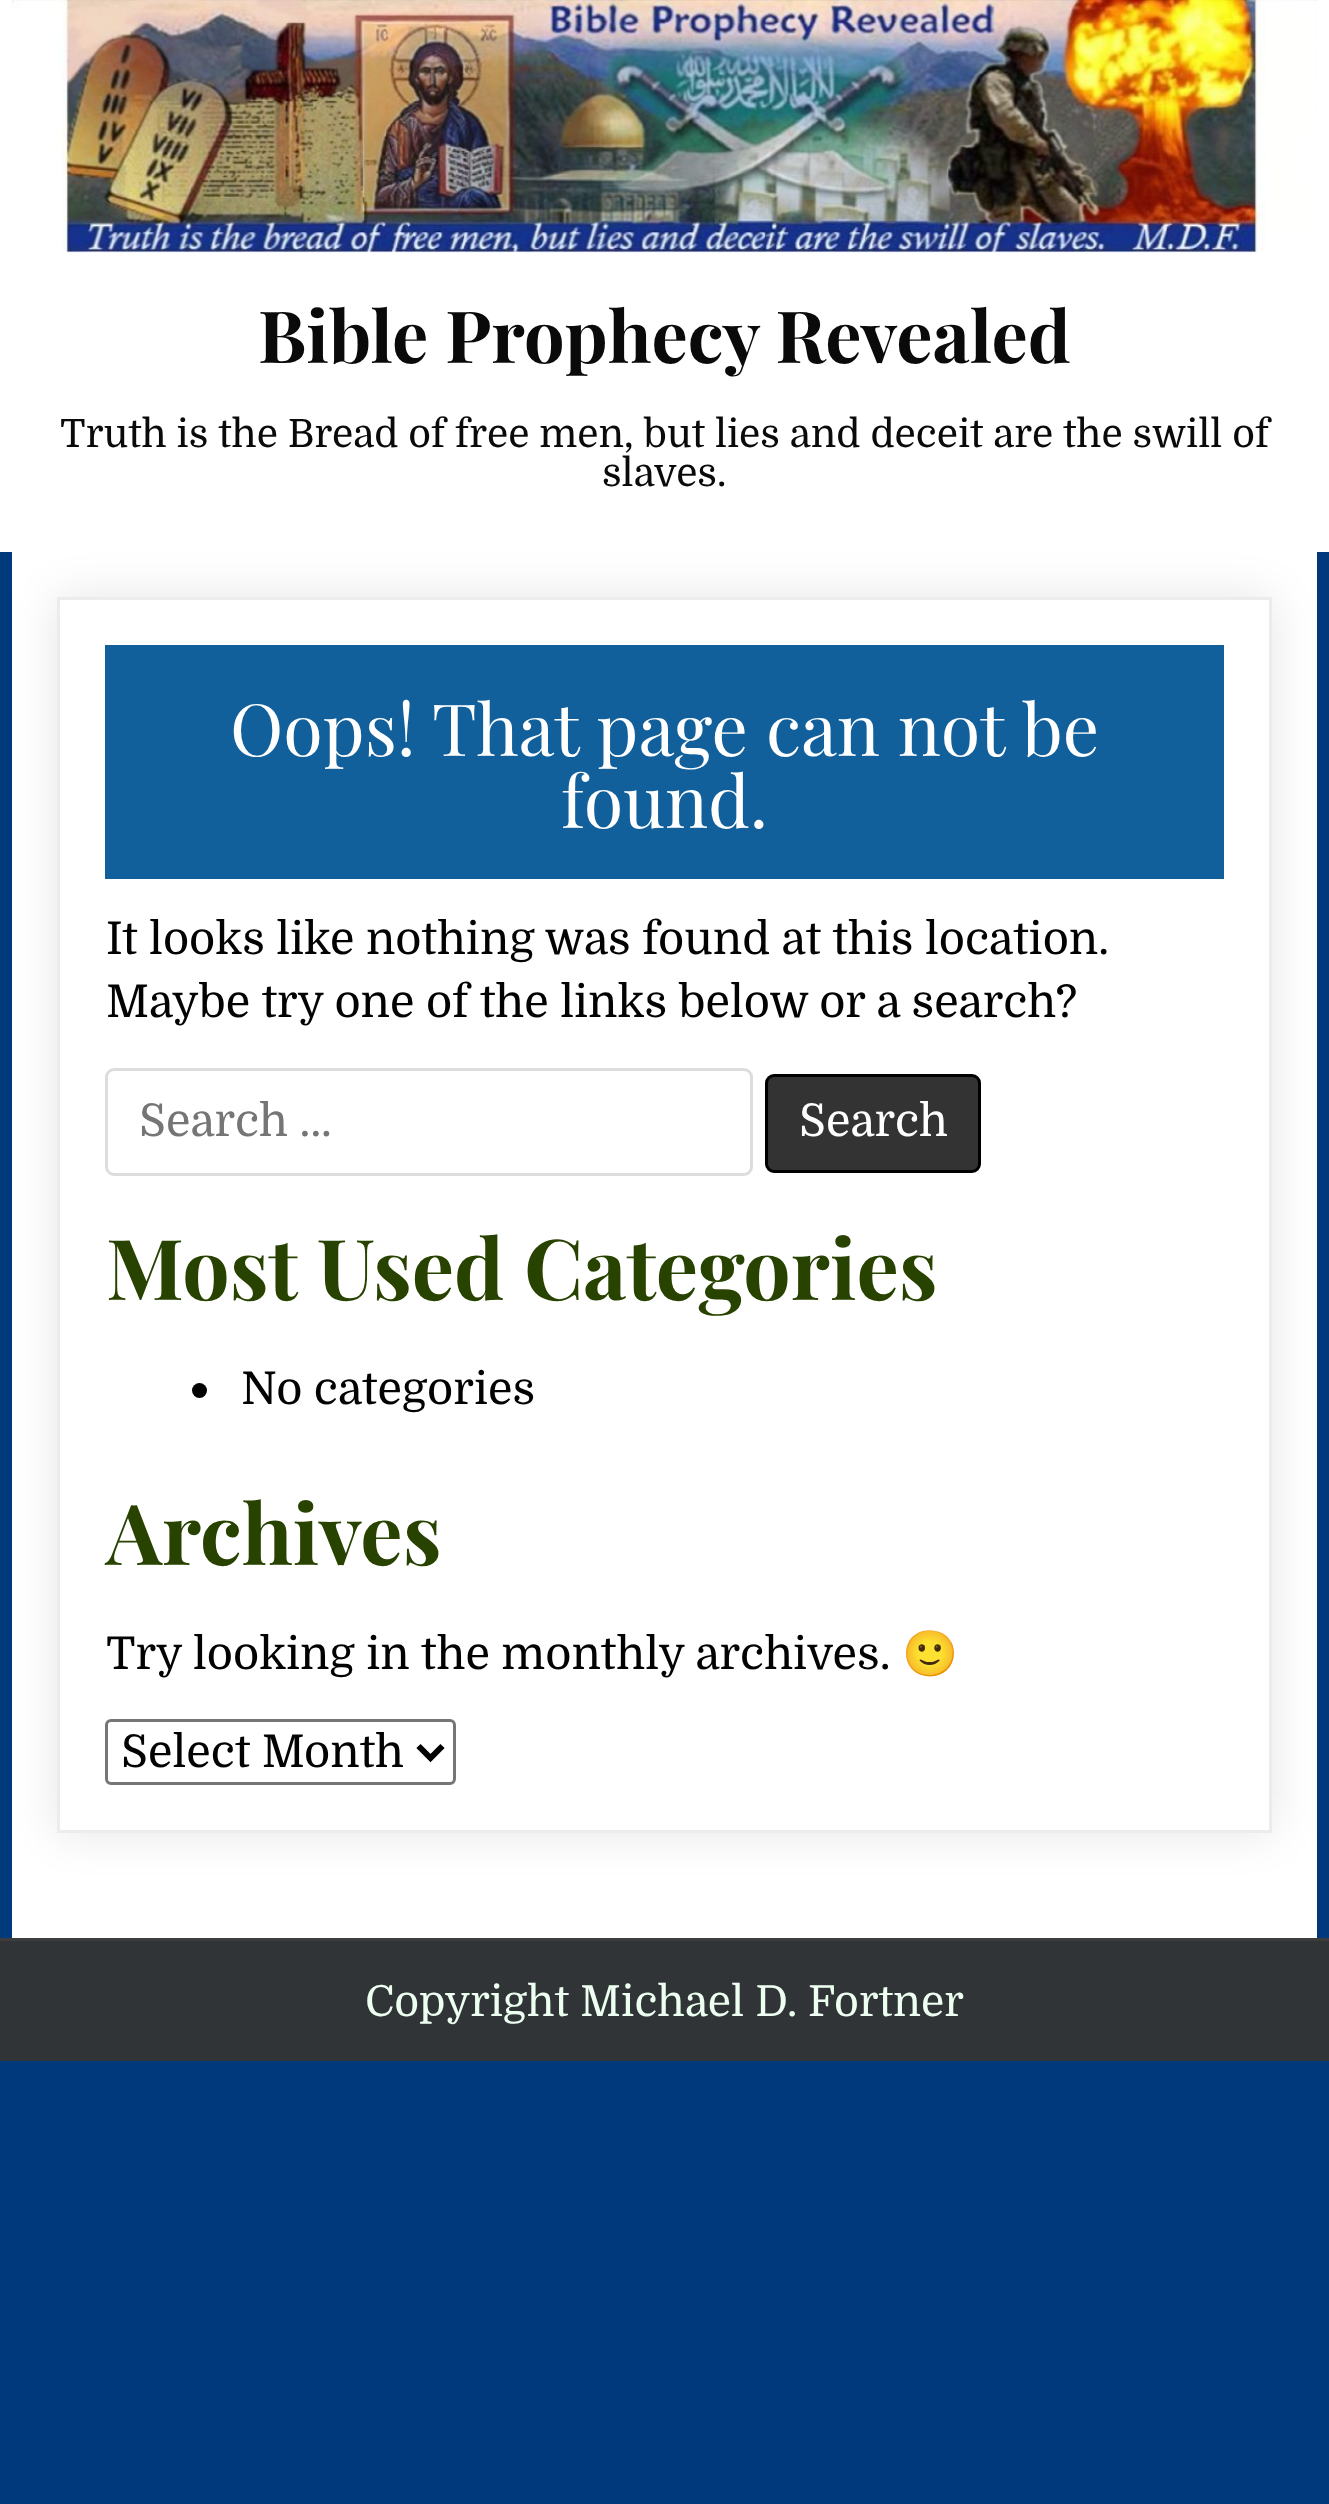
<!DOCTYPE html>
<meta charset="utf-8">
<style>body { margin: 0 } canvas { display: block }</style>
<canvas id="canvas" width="1329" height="2504"></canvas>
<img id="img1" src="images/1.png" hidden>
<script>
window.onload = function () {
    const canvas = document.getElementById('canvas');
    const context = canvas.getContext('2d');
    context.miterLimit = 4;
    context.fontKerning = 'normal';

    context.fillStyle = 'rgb(0, 58, 124)';
    context.fillRect(0, 0, 1329, 2504);
    context.fillStyle = 'rgb(255, 255, 255)';
    context.fillRect(12, 552, 1305, 1386);
    context.save();
    context.beginPath();
    context.moveTo(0, 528);
    context.lineTo(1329, 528);
    context.lineTo(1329, 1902);
    context.lineTo(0, 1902);
    context.closePath();
    context.moveTo(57, 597);
    context.lineTo(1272, 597);
    context.lineTo(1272, 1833);
    context.lineTo(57, 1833);
    context.closePath();
    context.clip('evenodd');
    context.fillStyle = 'rgba(0, 0, 0, 0.1)';
    context.filter = 'blur(22.5px)';
    context.beginPath();
    context.rect(57, 597, 1215, 1236);
    context.fill();
    context.filter = 'none';
    context.restore();
    context.fillRect(0, 0, 1329, 552);
    context.drawImage(document.getElementById('img1'), 12, 0, 1305, 253);
    context.strokeStyle = 'rgb(236, 236, 236)';
    context.lineWidth = 3;
    context.strokeRect(58.5, 598.5, 1212, 1233);
    context.fillStyle = 'rgb(18, 96, 155)';
    context.fillRect(105, 645, 1119, 234);
    context.beginPath();
    context.roundRect(106.5, 1069.5, 645, 105, 7.5);
    context.strokeStyle = 'rgb(221, 221, 221)';
    context.stroke();
    context.fillStyle = 'rgb(51, 51, 51)';
    context.beginPath();
    context.roundRect(766.5, 1075.5, 213, 96, 7.5);
    context.fill();
    context.strokeStyle = 'rgb(0, 0, 0)';
    context.stroke();
    context.fillStyle = 'rgb(2, 2, 2)';
    context.beginPath();
    context.arc(199.5, 1390.5, 7.5, 0, 2 * Math.PI);
    context.fill();
    context.beginPath();
    context.roundRect(106.5, 1720.5, 348, 63, 4.5);
    context.strokeStyle = 'rgb(118, 118, 118)';
    context.stroke();
    context.beginPath();
    context.moveTo(418.5, 1746);
    context.lineTo(430.5, 1758);
    context.lineTo(442.5, 1746);
    context.strokeStyle = 'rgb(2, 2, 2)';
    context.lineWidth = 6;
    context.stroke();
    context.fillStyle = 'rgb(48, 52, 54)';
    context.fillRect(0, 1941, 1329, 120);
    context.fillStyle = 'rgb(61, 61, 61)';
    context.fillRect(0, 1938, 1329, 3);
    context.font = 'bold 72px Playfair Display';
    context.fillStyle = 'rgb(10, 10, 10)';
    context.fillText('Bible Prophecy Revealed', 258, 363);
    context.font = '39px Domine';
    context.fillText('Truth is the Bread of free men, but lies and deceit are the swill of', 60, 447);
    context.fillText('slaves.', 602, 486);
    context.font = '72px Playfair Display';
    context.fillStyle = 'rgb(255, 255, 255)';
    context.fillText('Oops! That page can not be', 230, 756);
    context.fillText('found.', 561, 828);
    context.font = '45px Domine';
    context.fillStyle = 'rgb(2, 2, 2)';
    context.fillText('It looks like nothing was found at this location.', 106, 954);
    context.fillText('Maybe try one of the links below or a search?', 106, 1017);
    context.fillStyle = 'rgb(117, 117, 117)';
    context.fillText('Search …', 139, 1136);
    context.fillStyle = 'rgb(255, 255, 255)';
    context.fillText('Search', 799, 1136);
    context.font = 'bold 84px Playfair Display';
    context.fillStyle = 'rgb(40, 66, 0)';
    context.fillText('Most Used Categories', 106, 1300);
    context.font = '45px Domine';
    context.fillStyle = 'rgb(2, 2, 2)';
    context.fillText('No categories', 241, 1404);
    context.font = 'bold 84px Playfair Display';
    context.fillStyle = 'rgb(40, 66, 0)';
    context.fillText('Archives', 106, 1565);
    context.font = '45px Domine';
    context.fillStyle = 'rgb(2, 2, 2)';
    context.fillText('Try looking in the monthly archives.', 106, 1669);
    context.font = '45px Noto Color Emoji';
    context.fillText('🙂', 902, 1669);
    context.font = '45px Domine';
    context.fillText('Select Month', 121, 1767);
    context.font = '42.75px Domine';
    context.fillStyle = 'rgb(236, 255, 241)';
    context.fillText('Copyright Michael D. Fortner', 365, 2016);
};
</script>
